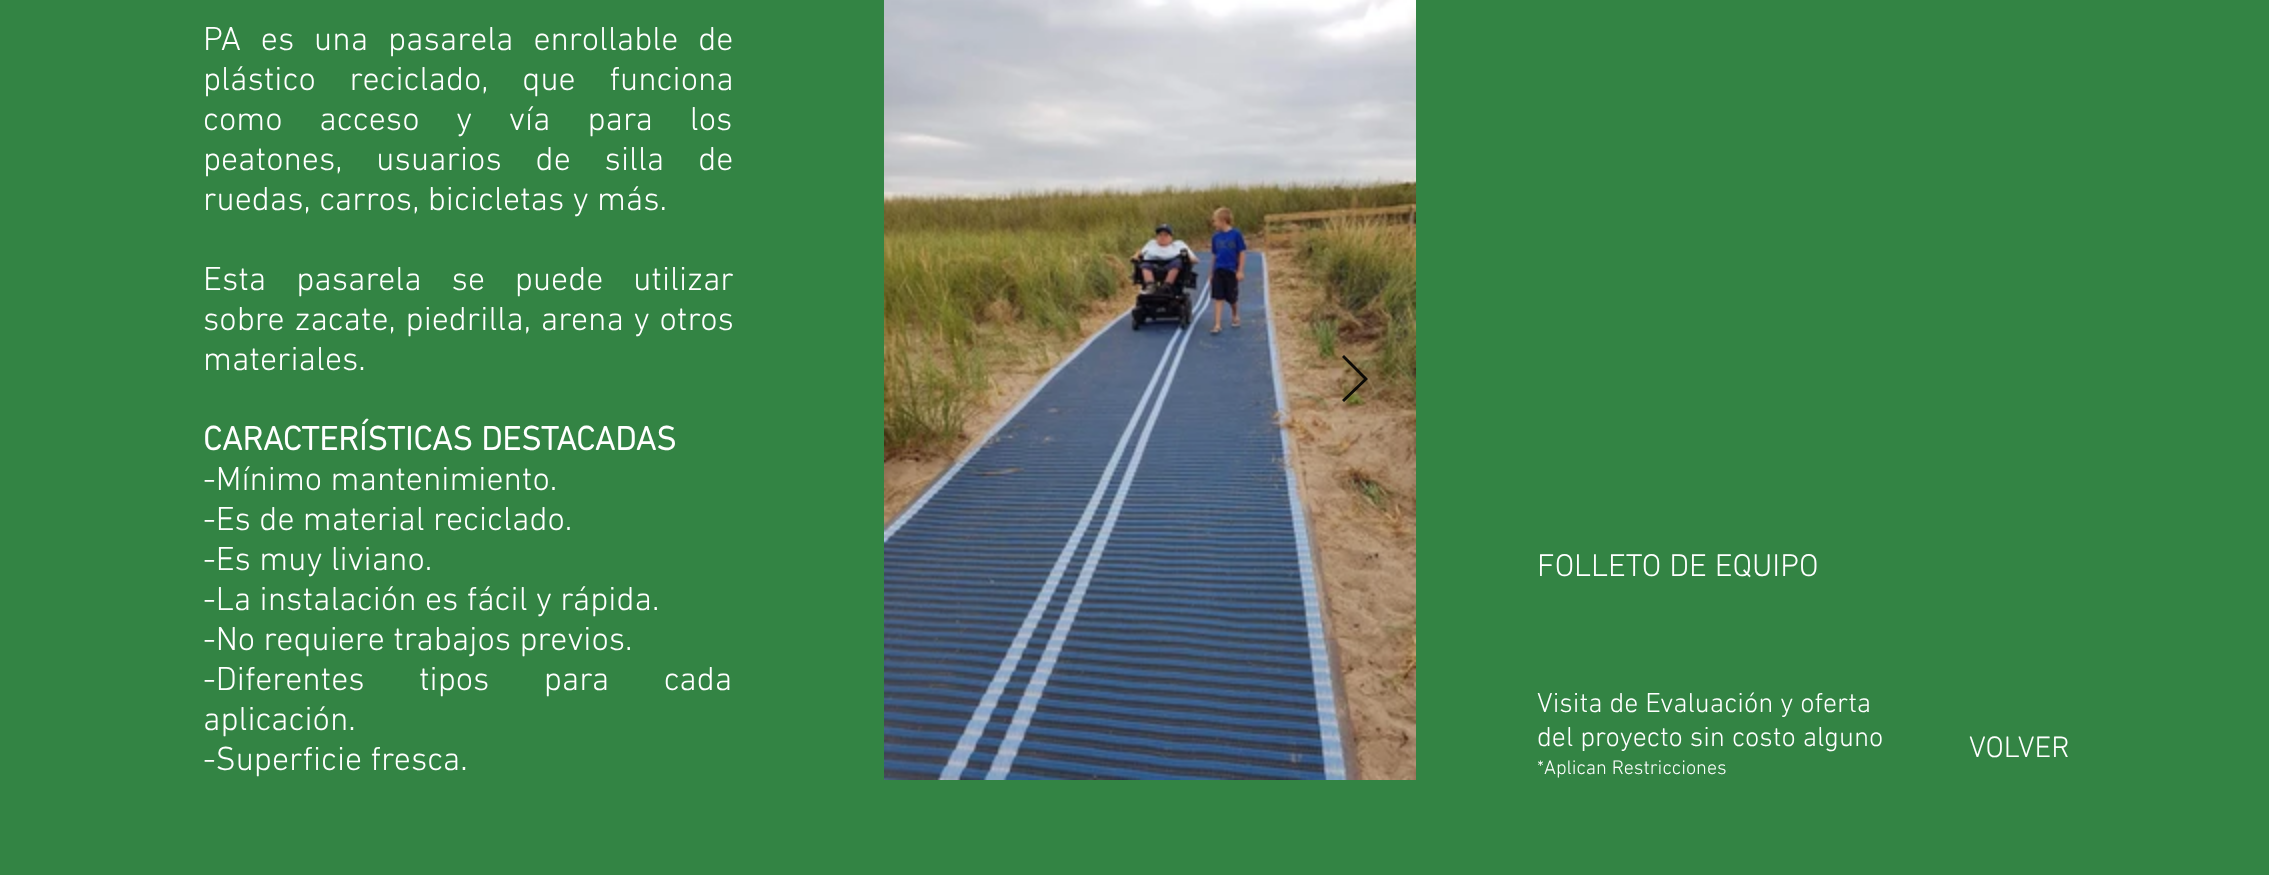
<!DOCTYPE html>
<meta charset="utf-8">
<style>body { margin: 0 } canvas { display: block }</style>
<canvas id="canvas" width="2269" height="875"></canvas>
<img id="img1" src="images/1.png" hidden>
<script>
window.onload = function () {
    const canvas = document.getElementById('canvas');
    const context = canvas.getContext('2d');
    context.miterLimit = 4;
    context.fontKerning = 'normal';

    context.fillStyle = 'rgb(51, 132, 68)';
    context.fillRect(0, 0, 2269, 875);
    context.drawImage(document.getElementById('img1'), 884, 0, 532, 780);
    context.fillStyle = 'rgba(0, 0, 0, 0.9)';
    context.beginPath();
    context.moveTo(1342, 357);
    context.lineTo(1344, 355);
    context.lineTo(1368, 379);
    context.lineTo(1344, 402);
    context.lineTo(1342, 400);
    context.lineTo(1364, 379);
    context.closePath();
    context.fill();
    context.wordSpacing = '11.5px';
    context.font = '300 34px "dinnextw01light"';
    context.fillStyle = 'rgb(255, 255, 255)';
    context.fillText('PA es una pasarela enrollable de', 203, 50);
    context.wordSpacing = '25.5px';
    context.fillText('plástico reciclado, que funciona', 203, 90);
    context.wordSpacing = '28.5px';
    context.fillText('como acceso y vía para los', 203, 130);
    context.wordSpacing = '25.5px';
    context.fillText('peatones, usuarios de silla de', 203, 170);
    context.wordSpacing = '0px';
    context.fillText('ruedas, carros, bicicletas y más.', 203, 210);
    context.wordSpacing = '21.5px';
    context.fillText('Esta pasarela se puede utilizar', 203, 290);
    context.wordSpacing = '1.5px';
    context.fillText('sobre zacate, piedrilla, arena y otros', 203, 330);
    context.wordSpacing = '0px';
    context.fillText('materiales.', 203, 370);
    context.font = 'bold 34px "dinnextw01light"';
    context.fillText('CARACTERÍSTICAS DESTACADAS', 203, 450);
    context.font = '300 34px "dinnextw01light"';
    context.fillText('-Mínimo mantenimiento.', 203, 490);
    context.fillText('-Es de material reciclado.', 203, 530);
    context.fillText('-Es muy liviano.', 203, 570);
    context.fillText('-La instalación es fácil y rápida.', 203, 610);
    context.fillText('-No requiere trabajos previos.', 203, 650);
    context.wordSpacing = '46px';
    context.fillText('-Diferentes tipos para cada', 203, 690);
    context.wordSpacing = '0px';
    context.fillText('aplicación.', 203, 730);
    context.fillText('-Superficie fresca.', 203, 770);
    context.font = '300 32px "dinnextw01light"';
    context.fillText('FOLLETO DE EQUIPO', 1537, 576);
    context.font = '300 28px "dinnextw01light"';
    context.fillText('Visita de Evaluación y oferta', 1537, 712);
    context.fillText('del proyecto sin costo alguno', 1537, 746);
    context.font = '300 20px "dinnextw01light"';
    context.fillText('*Aplican Restricciones', 1537, 774);
    context.font = '300 30px "dinnextw01light"';
    context.fillText('VOLVER', 1969, 757);
};
</script>
